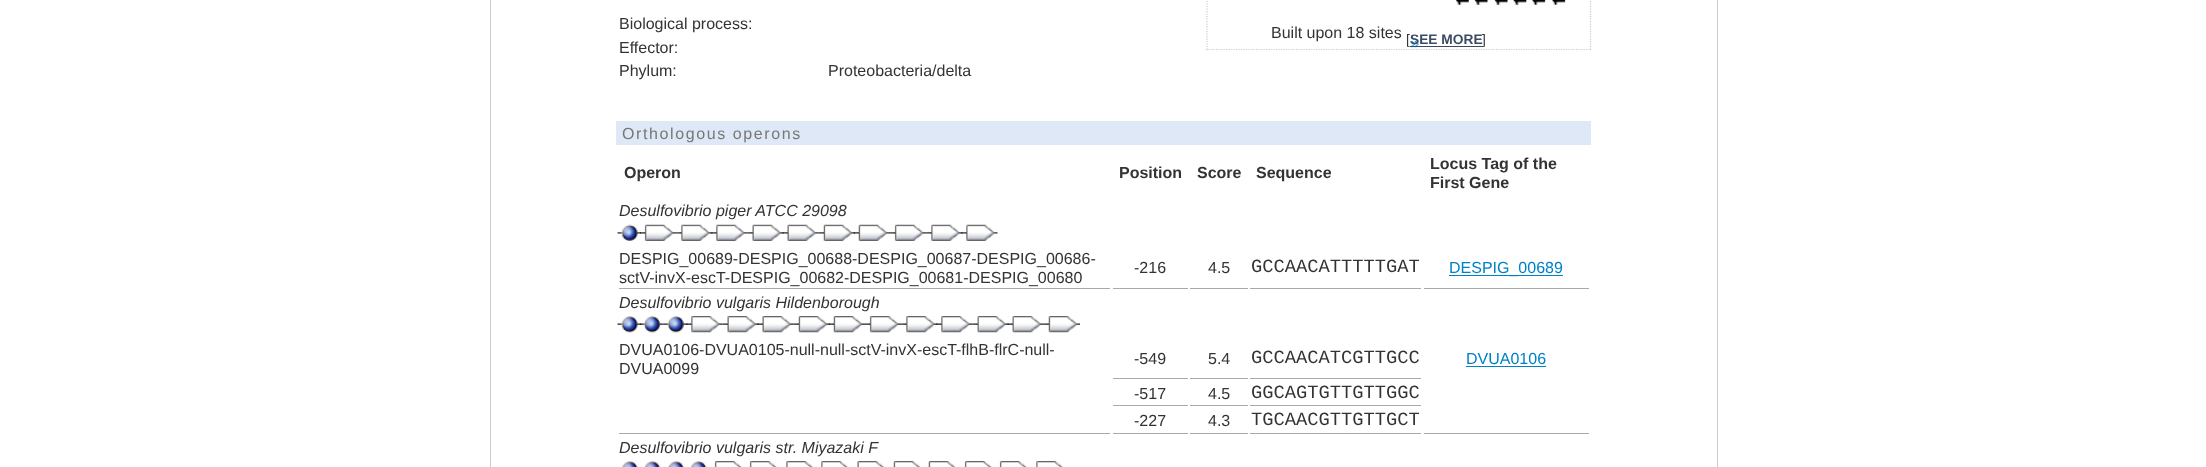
<!DOCTYPE html>
<meta charset="utf-8">
<style>body { margin: 0 } canvas { display: block }</style>
<canvas id="canvas" width="2206" height="467"></canvas>
<img id="img1" src="images/1.png" hidden>
<img id="img2" src="images/2.png" hidden>
<img id="img3" src="images/3.png" hidden>
<img id="img4" src="images/4.png" hidden>
<img id="img5" src="images/5.png" hidden>
<img id="img6" src="images/6.png" hidden>
<img id="img7" src="images/7.png" hidden>
<img id="img8" src="images/8.png" hidden>
<img id="img9" src="images/9.png" hidden>
<img id="img10" src="images/10.png" hidden>
<img id="img11" src="images/11.png" hidden>
<img id="img12" src="images/12.png" hidden>
<img id="img13" src="images/13.png" hidden>
<img id="img14" src="images/14.png" hidden>
<img id="img15" src="images/15.png" hidden>
<img id="img16" src="images/16.png" hidden>
<img id="img17" src="images/17.png" hidden>
<img id="img18" src="images/18.png" hidden>
<img id="img19" src="images/19.png" hidden>
<img id="img20" src="images/20.png" hidden>
<img id="img21" src="images/21.png" hidden>
<img id="img22" src="images/22.png" hidden>
<img id="img23" src="images/23.png" hidden>
<img id="img24" src="images/24.png" hidden>
<img id="img25" src="images/25.png" hidden>
<img id="img26" src="images/26.png" hidden>
<img id="img27" src="images/27.png" hidden>
<img id="img28" src="images/28.png" hidden>
<img id="img29" src="images/29.png" hidden>
<img id="img30" src="images/30.png" hidden>
<img id="img31" src="images/31.png" hidden>
<img id="img32" src="images/32.png" hidden>
<img id="img33" src="images/33.png" hidden>
<script>
window.onload = function () {
    const canvas = document.getElementById('canvas');
    const context = canvas.getContext('2d');
    context.miterLimit = 4;
    context.fontKerning = 'normal';

    context.fillStyle = 'rgb(255, 255, 255)';
    context.fillRect(0, 0, 2206, 467);
    context.strokeStyle = 'rgb(204, 204, 204)';
    context.strokeRect(490.5, -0.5, 1227, 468);
    context.beginPath();
    context.moveTo(1590.5, -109);
    context.lineTo(1590.5, 50);
    context.lineWidth = 1.2;
    context.setLineDash([1.25, 1.25]);
    context.stroke();
    context.beginPath();
    context.moveTo(1206, 49.5);
    context.lineTo(1591, 49.5);
    context.stroke();
    context.beginPath();
    context.moveTo(1207, -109);
    context.lineTo(1207, 50);
    context.stroke();
    context.drawImage(document.getElementById('img1'), 1456, 0, 110, 5);
    context.drawImage(document.getElementById('img2'), 1410, 41, 9, 7);
    context.fillStyle = 'rgb(60, 75, 100)';
    context.fillRect(1410, 46, 73, 1);
    context.fillStyle = 'rgb(223, 232, 246)';
    context.fillRect(616, 121, 975, 24);
    context.drawImage(document.getElementById('img3'), 617, 224, 25, 17);
    context.drawImage(document.getElementById('img4'), 640, 224, 37, 17);
    context.drawImage(document.getElementById('img5'), 676, 224, 37, 17);
    context.drawImage(document.getElementById('img6'), 711, 224, 37, 17);
    context.drawImage(document.getElementById('img7'), 747, 224, 37, 17);
    context.drawImage(document.getElementById('img8'), 782, 224, 37, 17);
    context.drawImage(document.getElementById('img9'), 818, 224, 37, 17);
    context.drawImage(document.getElementById('img10'), 853, 224, 37, 17);
    context.drawImage(document.getElementById('img11'), 890, 224, 37, 17);
    context.drawImage(document.getElementById('img5'), 926, 224, 37, 17);
    context.drawImage(document.getElementById('img6'), 961, 224, 37, 17);
    context.fillStyle = 'rgb(170, 170, 170)';
    context.fillRect(619, 288, 491, 1);
    context.fillRect(1113, 288, 75, 1);
    context.fillRect(1190, 288, 58, 1);
    context.fillRect(1250, 288, 171, 1);
    context.fillRect(1424, 288, 165, 1);
    context.fillStyle = 'rgb(0, 129, 198)';
    context.fillRect(1449, 275, 114, 1);
    context.drawImage(document.getElementById('img12'), 617, 316, 25, 17);
    context.drawImage(document.getElementById('img13'), 640, 316, 24, 17);
    context.drawImage(document.getElementById('img14'), 663, 316, 25, 17);
    context.drawImage(document.getElementById('img15'), 686, 316, 37, 17);
    context.drawImage(document.getElementById('img16'), 722, 316, 37, 17);
    context.drawImage(document.getElementById('img17'), 757, 316, 37, 17);
    context.drawImage(document.getElementById('img18'), 793, 316, 37, 17);
    context.drawImage(document.getElementById('img19'), 828, 316, 37, 17);
    context.drawImage(document.getElementById('img20'), 865, 316, 37, 17);
    context.drawImage(document.getElementById('img21'), 901, 316, 37, 17);
    context.drawImage(document.getElementById('img15'), 936, 316, 37, 17);
    context.drawImage(document.getElementById('img22'), 972, 316, 37, 17);
    context.drawImage(document.getElementById('img23'), 1007, 316, 37, 17);
    context.drawImage(document.getElementById('img18'), 1043, 316, 37, 17);
    context.fillStyle = 'rgb(170, 170, 170)';
    context.fillRect(1113, 378, 75, 1);
    context.fillRect(1190, 378, 58, 1);
    context.fillRect(1250, 378, 171, 1);
    context.fillStyle = 'rgb(0, 129, 198)';
    context.fillRect(1466, 366, 80, 1);
    context.fillStyle = 'rgb(170, 170, 170)';
    context.fillRect(1113, 405, 75, 1);
    context.fillRect(1190, 405, 58, 1);
    context.fillRect(1250, 405, 171, 1);
    context.fillRect(1113, 433, 75, 1);
    context.fillRect(1190, 433, 58, 1);
    context.fillRect(1250, 433, 171, 1);
    context.fillRect(619, 433, 491, 1);
    context.fillRect(1424, 433, 165, 1);
    context.drawImage(document.getElementById('img24'), 622, 461, 16, 6);
    context.drawImage(document.getElementById('img25'), 644, 461, 17, 6);
    context.drawImage(document.getElementById('img26'), 668, 461, 16, 6);
    context.drawImage(document.getElementById('img27'), 691, 461, 16, 6);
    context.drawImage(document.getElementById('img28'), 714, 461, 28, 6);
    context.drawImage(document.getElementById('img29'), 749, 461, 28, 6);
    context.drawImage(document.getElementById('img30'), 786, 461, 27, 6);
    context.drawImage(document.getElementById('img31'), 821, 461, 27, 6);
    context.drawImage(document.getElementById('img32'), 857, 461, 27, 6);
    context.drawImage(document.getElementById('img33'), 893, 461, 28, 6);
    context.drawImage(document.getElementById('img33'), 928, 461, 28, 6);
    context.drawImage(document.getElementById('img28'), 964, 461, 28, 6);
    context.drawImage(document.getElementById('img29'), 999, 461, 28, 6);
    context.drawImage(document.getElementById('img31'), 1036, 461, 27, 6);
    context.font = '16px Liberation Sans';
    context.fillStyle = 'rgb(51, 51, 51)';
    context.fillText('Biological process:', 619, 29);
    context.fillText('Effector:', 619, 53);
    context.fillText('Phylum:', 619, 76);
    context.fillText('Proteobacteria/delta', 828, 76);
    context.fillText('Built upon 18 sites', 1271, 38);
    context.font = '13.75px Liberation Sans';
    context.fillText('[', 1406, 44);
    context.font = 'bold 13.75px Liberation Sans';
    context.fillStyle = 'rgb(60, 75, 100)';
    context.fillText('SEE MORE', 1410, 44);
    context.font = '13.75px Liberation Sans';
    context.fillStyle = 'rgb(51, 51, 51)';
    context.fillText(']', 1482, 44);
    context.letterSpacing = '1.6px';
    context.font = '16px Liberation Sans';
    context.fillStyle = 'rgb(119, 119, 119)';
    context.fillText('Orthologous operons', 622, 139);
    context.letterSpacing = '0px';
    context.font = 'bold 16px Liberation Sans';
    context.fillStyle = 'rgb(51, 51, 51)';
    context.fillText('Operon', 624, 178);
    context.fillText('Position', 1119, 178);
    context.fillText('Score', 1197, 178);
    context.fillText('Sequence', 1256, 178);
    context.fillText('Locus Tag of the', 1430, 169);
    context.fillText('First Gene', 1430, 188);
    context.font = 'italic 16px Liberation Sans';
    context.fillText('Desulfovibrio piger ATCC 29098', 619, 216);
    context.font = '16px Liberation Sans';
    context.fillText('DESPIG_00689-DESPIG_00688-DESPIG_00687-DESPIG_00686-', 619, 264);
    context.fillText('sctV-invX-escT-DESPIG_00682-DESPIG_00681-DESPIG_00680', 619, 283);
    context.fillText('-216', 1134, 273);
    context.fillText('4.5', 1208, 273);
    context.font = '18.75px Liberation Mono';
    context.fillText('GCCAACATTTTTGAT', 1251, 272);
    context.font = '16px Liberation Sans';
    context.fillStyle = 'rgb(0, 129, 198)';
    context.fillText('DESPIG_00689', 1449, 273);
    context.font = 'italic 16px Liberation Sans';
    context.fillStyle = 'rgb(51, 51, 51)';
    context.fillText('Desulfovibrio vulgaris Hildenborough', 619, 308);
    context.font = '16px Liberation Sans';
    context.fillText('DVUA0106-DVUA0105-null-null-sctV-invX-escT-flhB-flrC-null-', 619, 355);
    context.fillText('DVUA0099', 619, 374);
    context.fillText('-549', 1134, 364);
    context.fillText('5.4', 1208, 364);
    context.font = '18.75px Liberation Mono';
    context.fillText('GCCAACATCGTTGCC', 1251, 363);
    context.font = '16px Liberation Sans';
    context.fillStyle = 'rgb(0, 129, 198)';
    context.fillText('DVUA0106', 1466, 364);
    context.fillStyle = 'rgb(51, 51, 51)';
    context.fillText('-517', 1134, 399);
    context.fillText('4.5', 1208, 399);
    context.font = '18.75px Liberation Mono';
    context.fillText('GGCAGTGTTGTTGGC', 1251, 398);
    context.font = '16px Liberation Sans';
    context.fillText('-227', 1134, 426);
    context.fillText('4.3', 1208, 426);
    context.font = '18.75px Liberation Mono';
    context.fillText('TGCAACGTTGTTGCT', 1251, 425);
    context.font = 'italic 16px Liberation Sans';
    context.fillText('Desulfovibrio vulgaris str. Miyazaki F', 619, 453);
};
</script>
